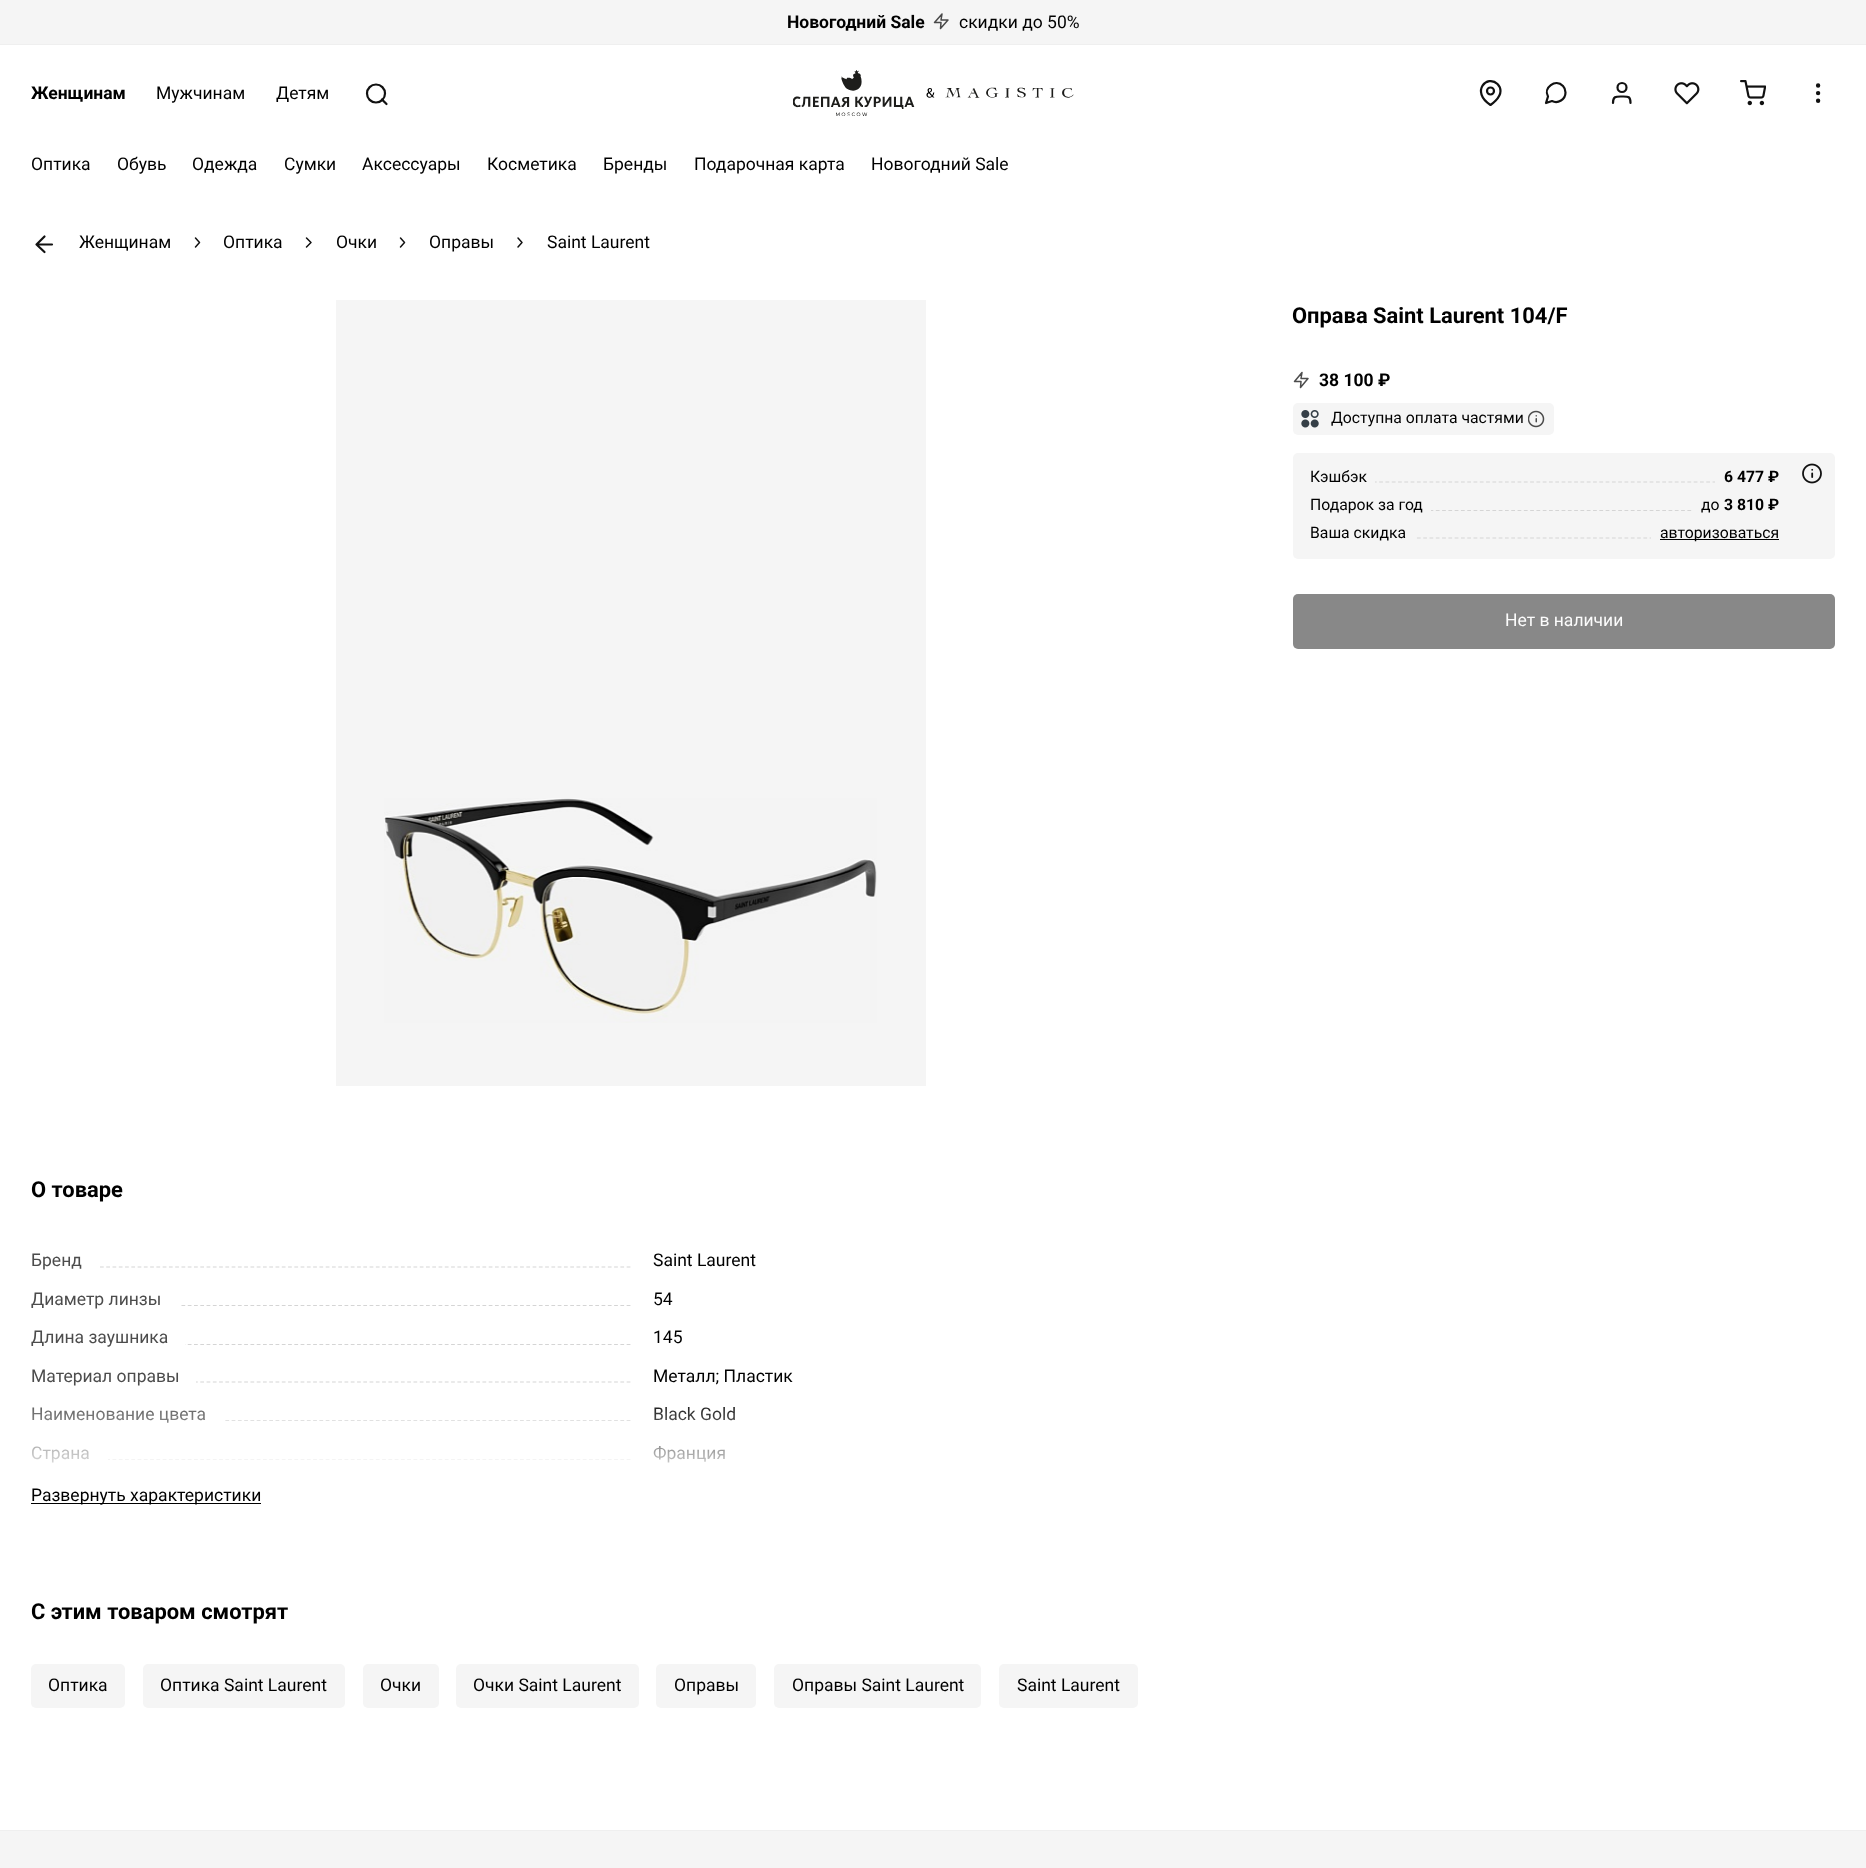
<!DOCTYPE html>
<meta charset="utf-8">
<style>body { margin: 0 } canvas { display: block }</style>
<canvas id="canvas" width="1866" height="1868"></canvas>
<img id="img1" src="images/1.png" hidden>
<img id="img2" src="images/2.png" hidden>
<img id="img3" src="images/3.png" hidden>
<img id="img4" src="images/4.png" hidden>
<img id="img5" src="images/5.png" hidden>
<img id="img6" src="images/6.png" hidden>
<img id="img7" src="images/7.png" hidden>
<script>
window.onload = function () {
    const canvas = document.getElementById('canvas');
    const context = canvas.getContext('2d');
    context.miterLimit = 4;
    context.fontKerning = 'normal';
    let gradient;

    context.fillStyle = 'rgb(255, 255, 255)';
    context.fillRect(0, 0, 1866, 1868);
    context.fillStyle = 'rgb(245, 245, 245)';
    context.fillRect(0, 0, 1866, 44);
    context.fillStyle = 'rgb(239, 239, 239)';
    context.fillRect(0, 44, 1866, 1);
    context.beginPath();
    context.moveTo(942, 14);
    context.lineTo(934.5, 22.5);
    context.lineTo(941, 22.5);
    context.lineTo(940.5, 28.5);
    context.lineTo(948, 20);
    context.lineTo(941, 20);
    context.closePath();
    context.strokeStyle = 'rgb(74, 74, 74)';
    context.lineWidth = 1.5;
    context.lineCap = 'round';
    context.lineJoin = 'round';
    context.stroke();
    context.beginPath();
    context.arc(376, 93.5, 9, 0, 2 * Math.PI);
    context.strokeStyle = 'rgb(17, 17, 17)';
    context.lineWidth = 2.2;
    context.stroke();
    context.beginPath();
    context.moveTo(386.5, 104);
    context.lineTo(382, 99.5);
    context.stroke();
    context.drawImage(document.getElementById('img1'), 793, 70, 281, 46);
    context.beginPath();
    context.moveTo(1500.5, 91);
    context.bezierCurveTo(1500.5, 98.5, 1490.5, 105, 1490.5, 105);
    context.bezierCurveTo(1470, 91.5, 1487.5, 74, 1497.5, 84);
    context.bezierCurveTo(1499.5, 86, 1500.5, 88.5, 1500.5, 91);
    context.closePath();
    context.stroke();
    context.beginPath();
    context.arc(1490.5, 91, 3.5, 0, 2 * Math.PI);
    context.stroke();
    context.beginPath();
    context.moveTo(1565.5, 92.5);
    context.bezierCurveTo(1565.5, 99.5, 1558, 104, 1552, 101);
    context.lineTo(1546, 103);
    context.lineTo(1548, 96.5);
    context.bezierCurveTo(1543, 87.5, 1555.5, 78.5, 1563, 86);
    context.bezierCurveTo(1564.5, 87.5, 1565.5, 90, 1565.5, 92.5);
    context.closePath();
    context.stroke();
    context.beginPath();
    context.moveTo(1630.5, 103);
    context.bezierCurveTo(1630.5, 96, 1628, 96.5, 1622, 96.5);
    context.bezierCurveTo(1616, 96.5, 1613, 96, 1613, 103);
    context.stroke();
    context.beginPath();
    context.arc(1622, 87.5, 4.5, 0, 2 * Math.PI);
    context.stroke();
    context.drawImage(document.getElementById('img2'), 1674, 82, 26, 23);
    context.drawImage(document.getElementById('img3'), 1740, 80, 26, 26);
    context.beginPath();
    context.arc(1818.1, 93.1, 1.1, 0, 2 * Math.PI);
    context.stroke();
    context.beginPath();
    context.arc(1818.1, 85.5, 1.1, 0, 2 * Math.PI);
    context.stroke();
    context.beginPath();
    context.arc(1818.1, 100.8, 1.1, 0, 2 * Math.PI);
    context.stroke();
    context.beginPath();
    context.moveTo(52, 244.5);
    context.lineTo(36.5, 244.5);
    context.moveTo(44.5, 252);
    context.lineTo(36.5, 244.5);
    context.lineTo(44.5, 236.5);
    context.stroke();
    context.beginPath();
    context.moveTo(195.5, 247);
    context.lineTo(199.5, 242.5);
    context.lineTo(195.5, 238);
    context.lineWidth = 1.5;
    context.stroke();
    context.beginPath();
    context.moveTo(306.5, 247);
    context.lineTo(311, 242.5);
    context.lineTo(306.5, 238);
    context.stroke();
    context.beginPath();
    context.moveTo(400.5, 247);
    context.lineTo(404.5, 242.5);
    context.lineTo(400.5, 238);
    context.stroke();
    context.beginPath();
    context.moveTo(518, 247);
    context.lineTo(522, 242.5);
    context.lineTo(518, 238);
    context.stroke();
    context.fillStyle = 'rgb(245, 245, 245)';
    context.fillRect(336, 300, 590, 786);
    context.drawImage(document.getElementById('img4'), 384, 798, 493, 225);
    context.beginPath();
    context.moveTo(1302, 372.5);
    context.lineTo(1294.5, 381.5);
    context.lineTo(1301, 381.5);
    context.lineTo(1300.5, 387.5);
    context.lineTo(1308, 378.5);
    context.lineTo(1301, 378.5);
    context.closePath();
    context.strokeStyle = 'rgb(77, 77, 77)';
    context.stroke();
    context.beginPath();
    context.roundRect(1293, 403, 261, 32, 5);
    context.fill();
    context.drawImage(document.getElementById('img5'), 1301, 410, 18, 18);
    context.drawImage(document.getElementById('img6'), 1528, 410, 17, 18);
    context.beginPath();
    context.roundRect(1293, 453, 542, 106, 5);
    context.fill();
    context.beginPath();
    context.moveTo(1310, 482);
    context.lineTo(1779, 482);
    context.strokeStyle = 'rgb(213, 213, 213)';
    context.lineWidth = 1.2;
    context.lineCap = 'butt';
    context.lineJoin = 'miter';
    context.setLineDash([3.75, 2.54]);
    context.stroke();
    context.fillRect(1310, 481, 65, 2);
    context.fillRect(1715, 481, 64, 2);
    context.drawImage(document.getElementById('img7'), 1802, 463, 20, 21);
    context.beginPath();
    context.moveTo(1310, 510.5);
    context.lineTo(1779, 510.5);
    context.stroke();
    context.fillRect(1310, 509, 121, 3);
    context.fillRect(1693, 509, 86, 3);
    context.beginPath();
    context.moveTo(1310, 538);
    context.lineTo(1779, 538);
    context.stroke();
    context.fillRect(1310, 537, 105, 2);
    context.fillRect(1651, 537, 128, 2);
    context.fillStyle = 'rgb(0, 0, 0)';
    context.fillRect(1660, 539, 119, 1);
    context.fillStyle = 'rgb(136, 136, 136)';
    context.beginPath();
    context.roundRect(1293, 594, 542, 55, 5);
    context.fill();
    context.beginPath();
    context.moveTo(31, 1267);
    context.lineTo(631, 1267);
    context.setLineDash([3.75, 2.52]);
    context.stroke();
    context.fillStyle = 'rgb(255, 255, 255)';
    context.fillRect(31, 1266, 67, 2);
    context.beginPath();
    context.moveTo(31, 1305.5);
    context.lineTo(631, 1305.5);
    context.stroke();
    context.fillRect(31, 1304, 148, 3);
    context.beginPath();
    context.moveTo(31, 1344.5);
    context.lineTo(631, 1344.5);
    context.stroke();
    context.fillRect(31, 1343, 154, 3);
    context.beginPath();
    context.moveTo(31, 1382);
    context.lineTo(631, 1382);
    context.stroke();
    context.fillRect(31, 1381, 165, 2);
    context.beginPath();
    context.moveTo(31, 1420.5);
    context.lineTo(631, 1420.5);
    context.stroke();
    context.fillRect(31, 1419, 192, 3);
    context.beginPath();
    context.moveTo(31, 1459.5);
    context.lineTo(631, 1459.5);
    context.stroke();
    context.fillRect(31, 1458, 77, 3);
    context.fillStyle = 'rgb(0, 0, 0)';
    context.fillRect(31, 1503, 230, 1);
    context.fillStyle = 'rgb(245, 245, 245)';
    context.beginPath();
    context.roundRect(31, 1664, 94, 44, 5);
    context.fill();
    context.beginPath();
    context.roundRect(143, 1664, 202, 44, 5);
    context.fill();
    context.beginPath();
    context.roundRect(363, 1664, 76, 44, 5);
    context.fill();
    context.beginPath();
    context.roundRect(456, 1664, 183, 44, 5);
    context.fill();
    context.beginPath();
    context.roundRect(656, 1664, 100, 44, 5);
    context.fill();
    context.beginPath();
    context.roundRect(774, 1664, 207, 44, 5);
    context.fill();
    context.beginPath();
    context.roundRect(999, 1664, 139, 44, 5);
    context.fill();
    context.fillRect(0, 1831, 1866, 37);
    context.fillStyle = 'rgb(239, 239, 239)';
    context.fillRect(0, 1830, 1866, 1);
    context.font = 'bold 17.5px Roboto';
    context.fillStyle = 'rgb(0, 0, 0)';
    context.fillText('Новогодний Sale', 787, 28);
    context.font = '17.5px Roboto';
    context.fillText('скидки до 50%', 959, 28);
    context.font = 'bold 17.5px Roboto';
    context.fillText('Женщинам', 31, 99);
    context.font = '17.5px Roboto';
    context.fillText('Мужчинам', 156, 99);
    context.fillText('Детям', 276, 99);
    context.fillText('Оптика', 31, 170);
    context.fillText('Обувь', 117, 170);
    context.fillText('Одежда', 192, 170);
    context.fillText('Сумки', 284, 170);
    context.fillText('Аксессуары', 362, 170);
    context.fillText('Косметика', 487, 170);
    context.fillText('Бренды', 603, 170);
    context.fillText('Подарочная карта', 694, 170);
    context.fillText('Новогодний Sale', 871, 170);
    context.fillText('Женщинам', 79, 248);
    context.fillText('Оптика', 223, 248);
    context.fillText('Очки', 336, 248);
    context.fillText('Оправы', 429, 248);
    context.fillText('Saint Laurent', 547, 248);
    context.font = 'bold 21.9px Roboto';
    context.fillText('Оправа Saint Laurent 104/F', 1292, 323);
    context.font = 'bold 17.5px Roboto';
    context.fillText('38 100 ₽', 1319, 386);
    context.font = '15.75px Roboto';
    context.fillText('Доступна оплата частями', 1331, 423);
    context.fillText('Кэшбэк', 1310, 482);
    context.font = 'bold 15.75px Roboto';
    context.fillText('6 477 ₽', 1724, 482);
    context.font = '15.75px Roboto';
    context.fillText('Подарок за год', 1310, 510);
    context.fillText('до', 1701, 510);
    context.font = 'bold 15.75px Roboto';
    context.fillText('3 810 ₽', 1724, 510);
    context.font = '15.75px Roboto';
    context.fillText('Ваша скидка', 1310, 538);
    context.fillText('авторизоваться', 1660, 538);
    context.font = '17.5px Roboto';
    context.fillStyle = 'rgb(252, 252, 252)';
    context.fillText('Нет в наличии', 1505, 626);
    context.font = 'bold 21.9px Roboto';
    context.fillStyle = 'rgb(0, 0, 0)';
    context.fillText('О товаре', 31, 1197);
    context.font = '17.5px Roboto';
    context.fillStyle = 'rgb(76, 76, 76)';
    context.fillText('Бренд', 31, 1266);
    context.fillStyle = 'rgb(0, 0, 0)';
    context.fillText('Saint Laurent', 653, 1266);
    context.fillStyle = 'rgb(76, 76, 76)';
    context.fillText('Диаметр линзы', 31, 1305);
    context.fillStyle = 'rgb(0, 0, 0)';
    context.fillText('54', 653, 1305);
    context.fillStyle = 'rgb(76, 76, 76)';
    context.fillText('Длина заушника', 31, 1343);
    context.fillStyle = 'rgb(0, 0, 0)';
    context.fillText('145', 653, 1343);
    context.fillStyle = 'rgb(76, 76, 76)';
    context.fillText('Материал оправы', 31, 1382);
    context.fillStyle = 'rgb(0, 0, 0)';
    context.fillText('Металл; Пластик', 653, 1382);
    context.fillStyle = 'rgb(76, 76, 76)';
    context.fillText('Наименование цвета', 31, 1420);
    context.fillStyle = 'rgb(0, 0, 0)';
    context.fillText('Black Gold', 653, 1420);
    context.fillStyle = 'rgb(76, 76, 76)';
    context.fillText('Страна', 31, 1459);
    context.fillStyle = 'rgb(0, 0, 0)';
    context.fillText('Франция', 653, 1459);
    gradient = context.createLinearGradient(631, 1395, 631, 1483);
    gradient.addColorStop(0, 'rgba(255, 255, 255, 0)');
    gradient.addColorStop(1, 'rgb(255, 255, 255)');
    context.fillStyle = gradient;
    context.fillRect(31, 1406, 704, 57);
    context.fillStyle = 'rgb(0, 0, 0)';
    context.fillText('Развернуть характеристики', 31, 1501);
    context.font = 'bold 21.9px Roboto';
    context.fillText('С этим товаром смотрят', 31, 1619);
    context.font = '17.5px Roboto';
    context.fillText('Оптика', 48, 1691);
    context.fillText('Оптика Saint Laurent', 160, 1691);
    context.fillText('Очки', 380, 1691);
    context.fillText('Очки Saint Laurent', 473, 1691);
    context.fillText('Оправы', 674, 1691);
    context.fillText('Оправы Saint Laurent', 792, 1691);
    context.fillText('Saint Laurent', 1017, 1691);
};
</script>
